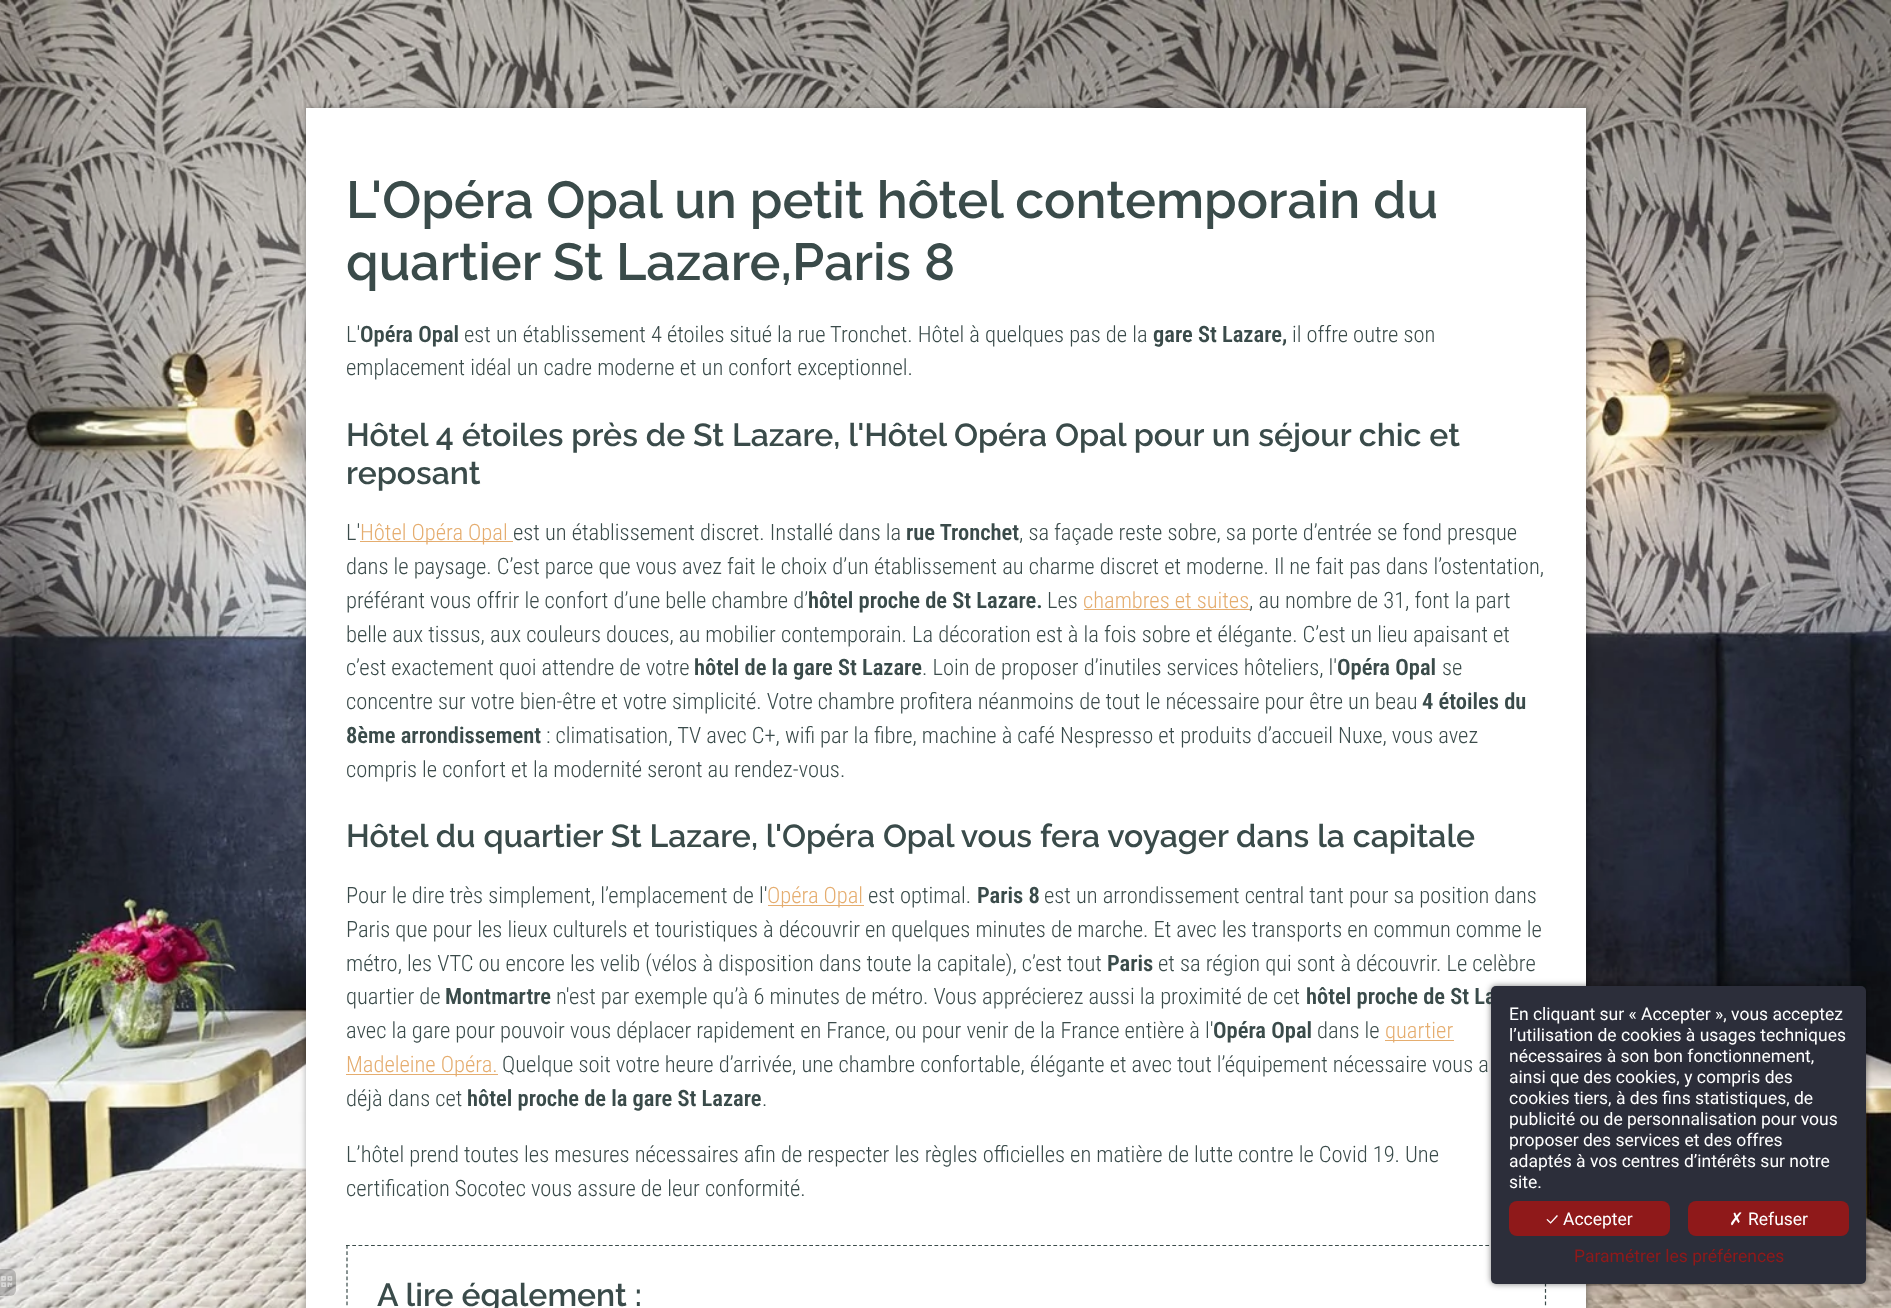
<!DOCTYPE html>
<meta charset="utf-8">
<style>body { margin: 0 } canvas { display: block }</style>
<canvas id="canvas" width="1891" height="1308"></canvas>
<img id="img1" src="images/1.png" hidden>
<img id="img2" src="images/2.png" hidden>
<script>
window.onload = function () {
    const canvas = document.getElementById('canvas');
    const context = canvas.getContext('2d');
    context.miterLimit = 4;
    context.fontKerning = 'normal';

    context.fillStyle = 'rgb(255, 255, 255)';
    context.fillRect(0, 0, 1891, 1308);
    context.drawImage(document.getElementById('img1'), 0, 0, 1891, 1308);
    context.fillStyle = 'rgba(0, 0, 0, 0.3)';
    context.filter = 'blur(3px)';
    context.beginPath();
    context.rect(306, 108, 1283, 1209);
    context.fill();
    context.filter = 'none';
    context.fillStyle = 'rgb(255, 255, 255)';
    context.fillRect(306, 108, 1280, 1200);
    context.fillStyle = 'rgb(229, 173, 111)';
    context.fillRect(360, 541, 153, 1);
    context.fillRect(1084, 609, 166, 1);
    context.fillRect(768, 905, 96, 1);
    context.fillRect(1385, 1040, 69, 1);
    context.fillRect(346, 1074, 152, 1);
    context.beginPath();
    context.moveTo(346, 1245.5);
    context.lineTo(1546, 1245.5);
    context.strokeStyle = 'rgb(58, 75, 74)';
    context.lineWidth = 1.2;
    context.setLineDash([3.75, 2.51]);
    context.stroke();
    context.beginPath();
    context.moveTo(1545.5, 1245);
    context.lineTo(1545.5, 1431);
    context.setLineDash([3.75, 2.54]);
    context.stroke();
    context.beginPath();
    context.moveTo(347, 1245);
    context.lineTo(347, 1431);
    context.stroke();
    context.fillStyle = 'rgba(0, 0, 0, 0.5)';
    context.filter = 'blur(3px)';
    context.beginPath();
    context.roundRect(1491, 986, 375, 298, 5);
    context.fill();
    context.filter = 'none';
    context.fillStyle = 'rgba(0, 0, 0, 0.2)';
    context.beginPath();
    context.roundRect(0, 1269, 16, 27, [0, 6, 6, 0]);
    context.fill();
    context.drawImage(document.getElementById('img2'), 1, 1276, 12, 11);
    context.font = '600 52px Raleway';
    context.fillStyle = 'rgb(58, 75, 74)';
    context.fillText('L\'Opéra Opal un petit hôtel contemporain du', 346, 218);
    context.fillText('quartier St Lazare,Paris 8', 346, 280);
    context.font = '300 22.5px Roboto Condensed';
    context.fillText('L\'', 346, 342);
    context.font = '600 22.5px Roboto Condensed';
    context.fillText('Opéra Opal', 360, 342);
    context.font = '300 22.5px Roboto Condensed';
    context.fillText('est un établissement 4 étoiles situé la rue Tronchet. Hôtel à quelques pas de la', 464, 342);
    context.font = '600 22.5px Roboto Condensed';
    context.fillText('gare St Lazare,', 1153, 342);
    context.font = '300 22.5px Roboto Condensed';
    context.fillText('il offre outre son', 1292, 342);
    context.fillText('emplacement idéal un cadre moderne et un confort exceptionnel.', 346, 375);
    context.font = '600 32px Raleway';
    context.fillText('Hôtel 4 étoiles près de St Lazare, l\'Hôtel Opéra Opal pour un séjour chic et', 346, 446);
    context.fillText('reposant', 346, 484);
    context.font = '300 22.5px Roboto Condensed';
    context.fillText('L\'', 346, 540);
    context.fillStyle = 'rgb(229, 173, 111)';
    context.fillText('Hôtel Opéra Opal', 360, 540);
    context.fillStyle = 'rgb(58, 75, 74)';
    context.fillText('est un établissement discret. Installé dans la', 513, 540);
    context.font = '600 22.5px Roboto Condensed';
    context.fillText('rue Tronchet', 906, 540);
    context.font = '300 22.5px Roboto Condensed';
    context.fillText(', sa façade reste sobre, sa porte d’entrée se fond presque', 1019, 540);
    context.fillText('dans le paysage. C’est parce que vous avez fait le choix d’un établissement au charme discret et moderne. Il ne fait pas dans l’ostentation,', 346, 574);
    context.fillText('préférant vous offrir le confort d’une belle chambre d’', 346, 608);
    context.font = '600 22.5px Roboto Condensed';
    context.fillText('hôtel proche de St Lazare.', 808, 608);
    context.font = '300 22.5px Roboto Condensed';
    context.fillText('Les', 1047, 608);
    context.fillStyle = 'rgb(229, 173, 111)';
    context.fillText('chambres et suites', 1083, 608);
    context.fillStyle = 'rgb(58, 75, 74)';
    context.fillText(', au nombre de 31, font la part', 1249, 608);
    context.fillText('belle aux tissus, aux couleurs douces, au mobilier contemporain. La décoration est à la fois sobre et élégante. C’est un lieu apaisant et', 346, 642);
    context.fillText('c’est exactement quoi attendre de votre', 346, 675);
    context.font = '600 22.5px Roboto Condensed';
    context.fillText('hôtel de la gare St Lazare', 694, 675);
    context.font = '300 22.5px Roboto Condensed';
    context.fillText('. Loin de proposer d’inutiles services hôteliers, l\'', 922, 675);
    context.font = '600 22.5px Roboto Condensed';
    context.fillText('Opéra Opal', 1337, 675);
    context.font = '300 22.5px Roboto Condensed';
    context.fillText('se', 1442, 675);
    context.fillText('concentre sur votre bien-être et votre simplicité. Votre chambre profitera néanmoins de tout le nécessaire pour être un beau', 346, 709);
    context.font = '600 22.5px Roboto Condensed';
    context.fillText('4 étoiles du', 1422, 709);
    context.fillText('8ème arrondissement', 346, 743);
    context.font = '300 22.5px Roboto Condensed';
    context.fillText(': climatisation, TV avec C+, wifi par la fibre, machine à café Nespresso et produits d’accueil Nuxe, vous avez', 546, 743);
    context.fillText('compris le confort et la modernité seront au rendez-vous.', 346, 777);
    context.font = '600 32px Raleway';
    context.fillText('Hôtel du quartier St Lazare, l\'Opéra Opal vous fera voyager dans la capitale', 346, 847);
    context.font = '300 22.5px Roboto Condensed';
    context.fillText('Pour le dire très simplement, l’emplacement de l\'', 346, 903);
    context.fillStyle = 'rgb(229, 173, 111)';
    context.fillText('Opéra Opal', 767, 903);
    context.fillStyle = 'rgb(58, 75, 74)';
    context.fillText('est optimal.', 868, 903);
    context.font = '600 22.5px Roboto Condensed';
    context.fillText('Paris 8', 977, 903);
    context.font = '300 22.5px Roboto Condensed';
    context.fillText('est un arrondissement central tant pour sa position dans', 1044, 903);
    context.fillText('Paris que pour les lieux culturels et touristiques à découvrir en quelques minutes de marche. Et avec les transports en commun comme le', 346, 937);
    context.fillText('métro, les VTC ou encore les velib (vélos à disposition dans toute la capitale), c’est tout', 346, 971);
    context.font = '600 22.5px Roboto Condensed';
    context.fillText('Paris', 1107, 971);
    context.font = '300 22.5px Roboto Condensed';
    context.fillText('et sa région qui sont à découvrir. Le celèbre', 1158, 971);
    context.fillText('quartier de', 346, 1004);
    context.font = '600 22.5px Roboto Condensed';
    context.fillText('Montmartre', 445, 1004);
    context.font = '300 22.5px Roboto Condensed';
    context.fillText('n\'est par exemple qu’à 6 minutes de métro. Vous apprécierez aussi la proximité de cet', 556, 1004);
    context.font = '600 22.5px Roboto Condensed';
    context.fillText('hôtel proche de St La', 1306, 1004);
    context.font = '300 22.5px Roboto Condensed';
    context.fillText('avec la gare pour pouvoir vous déplacer rapidement en France, ou pour venir de la France entière à l\'', 346, 1038);
    context.font = '600 22.5px Roboto Condensed';
    context.fillText('Opéra Opal', 1213, 1038);
    context.font = '300 22.5px Roboto Condensed';
    context.fillText('dans le', 1317, 1038);
    context.fillStyle = 'rgb(229, 173, 111)';
    context.fillText('quartier', 1385, 1038);
    context.fillText('Madeleine Opéra.', 346, 1072);
    context.fillStyle = 'rgb(58, 75, 74)';
    context.fillText('Quelque soit votre heure d’arrivée, une chambre confortable, élégante et avec tout l’équipement nécessaire vous a', 502, 1072);
    context.fillText('déjà dans cet', 346, 1106);
    context.font = '600 22.5px Roboto Condensed';
    context.fillText('hôtel proche de la gare St Lazare', 467, 1106);
    context.font = '300 22.5px Roboto Condensed';
    context.fillText('.', 762, 1106);
    context.fillText('L’hôtel prend toutes les mesures nécessaires afin de respecter les règles officielles en matière de lutte contre le Covid 19. Une', 346, 1162);
    context.fillText('certification Socotec vous assure de leur conformité.', 346, 1196);
    context.font = '600 32px Raleway';
    context.fillText('A lire également :', 377, 1306);
    context.fillStyle = 'rgb(44, 46, 58)';
    context.beginPath();
    context.roundRect(1491, 986, 375, 298, 5);
    context.fill();
    context.font = '17.5px Roboto';
    context.fillStyle = 'rgb(255, 255, 255)';
    context.fillText('En cliquant sur « Accepter », vous acceptez', 1509, 1020);
    context.fillText('l’utilisation de cookies à usages techniques', 1509, 1041);
    context.fillText('nécessaires à son bon fonctionnement,', 1509, 1062);
    context.fillText('ainsi que des cookies, y compris des', 1509, 1083);
    context.fillText('cookies tiers, à des fins statistiques, de', 1509, 1104);
    context.fillText('publicité ou de personnalisation pour vous', 1509, 1125);
    context.fillText('proposer des services et des offres', 1509, 1146);
    context.fillText('adaptés à vos centres d’intérêts sur notre', 1509, 1167);
    context.fillText('site.', 1509, 1188);
    context.fillStyle = 'rgb(143, 25, 26)';
    context.beginPath();
    context.roundRect(1509, 1201, 161, 35, 8);
    context.fill();
    context.font = '17.5px Ubuntu';
    context.fillStyle = 'rgb(255, 255, 255)';
    context.fillText('✓', 1546, 1225);
    context.font = '17.5px Roboto';
    context.fillText('Accepter', 1563, 1225);
    context.fillStyle = 'rgb(143, 25, 26)';
    context.beginPath();
    context.roundRect(1688, 1201, 161, 35, 8);
    context.fill();
    context.font = '17.5px DejaVu Sans';
    context.fillStyle = 'rgb(255, 255, 255)';
    context.fillText('✗', 1729, 1225);
    context.font = '17.5px Roboto';
    context.fillText('Refuser', 1748, 1225);
    context.fillStyle = 'rgb(143, 25, 26)';
    context.fillText('Paramétrer les préférences', 1574, 1262);
};
</script>
